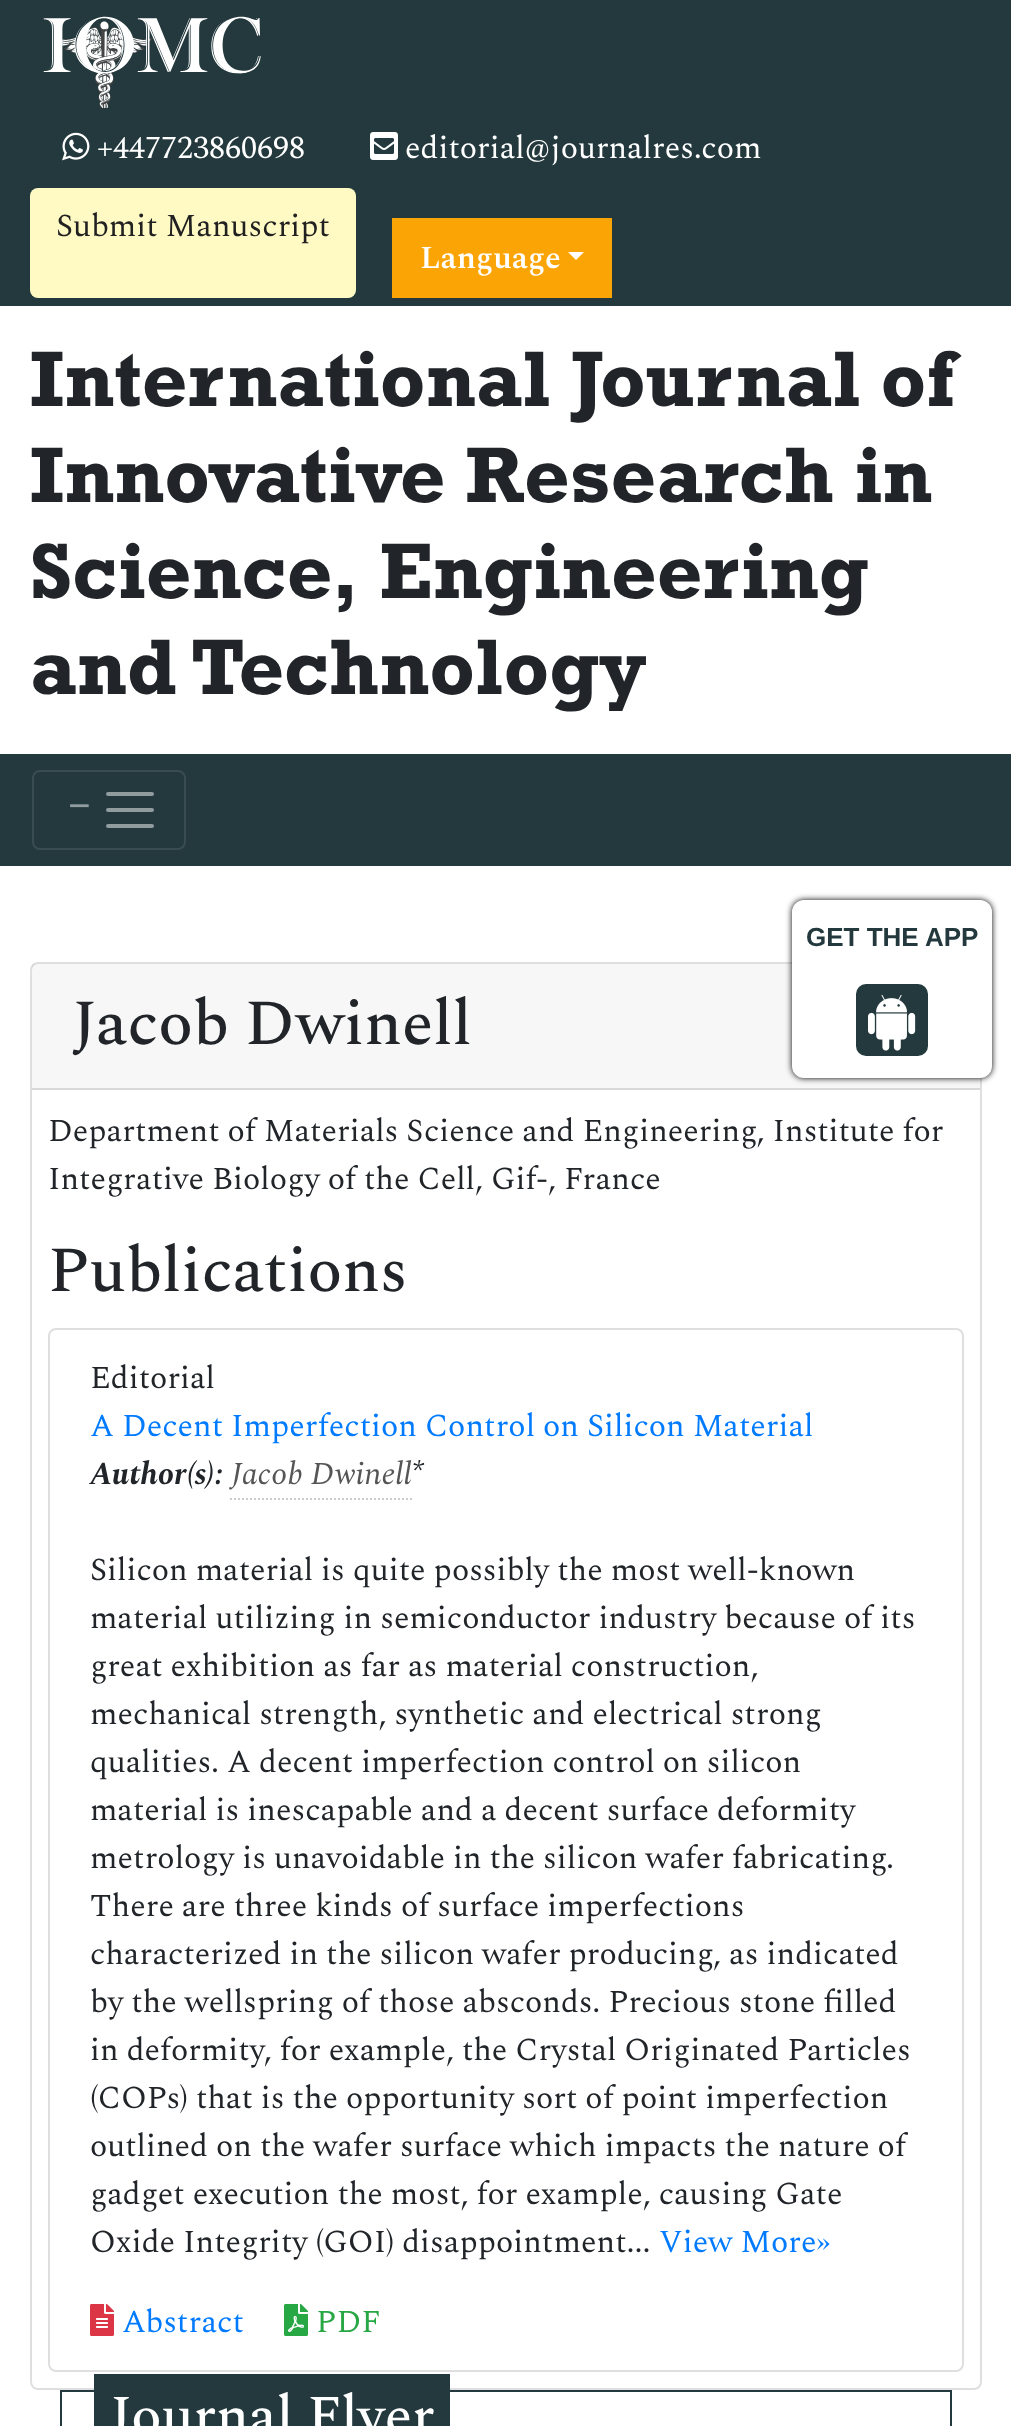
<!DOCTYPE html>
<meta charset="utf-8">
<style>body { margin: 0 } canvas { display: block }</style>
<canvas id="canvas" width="1011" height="2426"></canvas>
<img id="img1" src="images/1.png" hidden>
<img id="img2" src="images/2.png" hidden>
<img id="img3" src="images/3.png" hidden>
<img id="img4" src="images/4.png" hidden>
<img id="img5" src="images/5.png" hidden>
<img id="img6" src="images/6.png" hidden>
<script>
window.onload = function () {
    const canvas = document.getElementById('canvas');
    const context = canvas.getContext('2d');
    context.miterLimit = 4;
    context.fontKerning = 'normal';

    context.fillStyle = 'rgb(255, 255, 255)';
    context.fillRect(0, 0, 1011, 2426);
    context.fillStyle = 'rgb(35, 57, 61)';
    context.fillRect(0, 0, 1011, 306);
    context.drawImage(document.getElementById('img1'), 43, 16, 218, 92);
    context.drawImage(document.getElementById('img2'), 62, 132, 28, 29);
    context.drawImage(document.getElementById('img3'), 370, 132, 28, 28);
    context.fillStyle = 'rgb(255, 249, 196)';
    context.beginPath();
    context.roundRect(30, 188, 326, 110, 8);
    context.fill();
    context.fillStyle = 'rgb(251, 164, 5)';
    context.fillRect(392, 218, 220, 80);
    context.fillStyle = 'rgb(255, 255, 255)';
    context.beginPath();
    context.moveTo(568, 252);
    context.lineTo(584, 252);
    context.lineTo(576, 260);
    context.closePath();
    context.fill();
    context.fillStyle = 'rgb(35, 57, 61)';
    context.fillRect(0, 754, 1011, 112);
    context.beginPath();
    context.roundRect(33, 771, 152, 78, 7);
    context.strokeStyle = 'rgb(57, 77, 80)';
    context.lineWidth = 2;
    context.stroke();
    context.beginPath();
    context.moveTo(108, 794);
    context.lineTo(152, 794);
    context.moveTo(108, 810);
    context.lineTo(152, 810);
    context.moveTo(108, 826);
    context.lineTo(152, 826);
    context.strokeStyle = 'rgb(145, 156, 158)';
    context.lineWidth = 4;
    context.lineCap = 'round';
    context.stroke();
    context.beginPath();
    context.roundRect(31, 963, 950, 1426, 7);
    context.strokeStyle = 'rgb(223, 223, 223)';
    context.lineWidth = 2;
    context.stroke();
    context.fillStyle = 'rgba(0, 0, 0, 0.03)';
    context.fillRect(32, 964, 948, 124);
    context.fillStyle = 'rgb(0, 0, 0)';
    context.filter = 'blur(3px)';
    context.beginPath();
    context.roundRect(792, 900, 200, 178, 12);
    context.fill();
    context.filter = 'none';
    context.fillStyle = 'rgb(255, 255, 255)';
    context.beginPath();
    context.roundRect(793, 901, 198, 176, 11);
    context.fill();
    context.strokeStyle = 'rgb(255, 255, 255)';
    context.stroke();
    context.fillStyle = 'rgb(35, 57, 61)';
    context.beginPath();
    context.roundRect(856, 984, 72, 72, 10);
    context.fill();
    context.drawImage(document.getElementById('img4'), 868, 994, 48, 57);
    context.fillStyle = 'rgb(216, 216, 216)';
    context.fillRect(32, 1088, 948, 2);
    context.beginPath();
    context.roundRect(49, 1329, 914, 1042, 7);
    context.strokeStyle = 'rgb(223, 223, 223)';
    context.stroke();
    context.beginPath();
    context.moveTo(230, 1499);
    context.lineTo(412, 1499);
    context.strokeStyle = 'rgb(204, 204, 204)';
    context.lineCap = 'butt';
    context.setLineDash([2, 2]);
    context.stroke();
    context.drawImage(document.getElementById('img5'), 90, 2304, 24, 32);
    context.drawImage(document.getElementById('img6'), 284, 2304, 24, 32);
    context.strokeStyle = 'rgb(35, 57, 61)';
    context.setLineDash([]);
    context.strokeRect(61, 2391, 890, 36);
    context.fillStyle = 'rgb(35, 57, 61)';
    context.fillRect(94, 2374, 356, 52);
    context.font = '32px Spectral';
    context.fillStyle = 'rgb(255, 255, 255)';
    context.fillText('+447723860698', 97, 158);
    context.fillText('editorial@journalres.com', 405, 158);
    context.fillStyle = 'rgb(33, 33, 33)';
    context.fillText('Submit Manuscript', 56, 236);
    context.font = '600 32px Spectral';
    context.fillStyle = 'rgb(255, 255, 255)';
    context.fillText('Language', 420, 268);
    context.font = 'bold 80px Rockwell';
    context.fillStyle = 'rgb(33, 37, 41)';
    context.fillText('International Journal of', 30, 406);
    context.fillText('Innovative Research in', 30, 502);
    context.fillText('Science, Engineering', 30, 598);
    context.fillText('and Technology', 30, 694);
    context.font = 'bold 40px Liberation Serif';
    context.fillStyle = 'rgb(145, 156, 158)';
    context.fillText('−', 68, 819);
    context.font = 'bold 26px Liberation Sans';
    context.fillStyle = 'rgb(35, 57, 61)';
    context.fillText('GET THE APP', 806, 946);
    context.font = '500 64px Spectral';
    context.fillStyle = 'rgb(33, 37, 41)';
    context.fillText('Jacob Dwinell', 72, 1044);
    context.font = '32px Spectral';
    context.fillText('Department of Materials Science and Engineering, Institute for', 48, 1141);
    context.fillText('Integrative Biology of the Cell, Gif-, France', 48, 1189);
    context.font = '500 64px Spectral';
    context.fillText('Publications', 48, 1291);
    context.font = '32px Spectral';
    context.fillText('Editorial', 90, 1388);
    context.fillStyle = 'rgb(0, 123, 255)';
    context.fillText('A Decent Imperfection Control on Silicon Material', 90, 1436);
    context.font = 'italic bold 32px Spectral';
    context.fillStyle = 'rgb(33, 37, 41)';
    context.fillText('Author(s):', 90, 1484);
    context.font = 'italic 32px Spectral';
    context.fillStyle = 'rgb(85, 85, 85)';
    context.fillText('Jacob Dwinell', 231, 1484);
    context.fillStyle = 'rgb(33, 37, 41)';
    context.fillText('*', 411, 1484);
    context.font = '32px Spectral';
    context.fillText('Silicon material is quite possibly the most well-known', 90, 1580);
    context.fillText('material utilizing in semiconductor industry because of its', 90, 1628);
    context.fillText('great exhibition as far as material construction,', 90, 1676);
    context.fillText('mechanical strength, synthetic and electrical strong', 90, 1724);
    context.fillText('qualities. A decent imperfection control on silicon', 90, 1772);
    context.fillText('material is inescapable and a decent surface deformity', 90, 1820);
    context.fillText('metrology is unavoidable in the silicon wafer fabricating.', 90, 1868);
    context.fillText('There are three kinds of surface imperfections', 90, 1916);
    context.fillText('characterized in the silicon wafer producing, as indicated', 90, 1964);
    context.fillText('by the wellspring of those absconds. Precious stone filled', 90, 2012);
    context.fillText('in deformity, for example, the Crystal Originated Particles', 90, 2060);
    context.fillText('(COPs) that is the opportunity sort of point imperfection', 90, 2108);
    context.fillText('outlined on the wafer surface which impacts the nature of', 90, 2156);
    context.fillText('gadget execution the most, for example, causing Gate', 90, 2204);
    context.fillText('Oxide Integrity (GOI) disappointment...', 90, 2252);
    context.fillStyle = 'rgb(0, 123, 255)';
    context.fillText('View More»', 659, 2252);
    context.fillText('Abstract', 122, 2332);
    context.fillStyle = 'rgb(40, 167, 69)';
    context.fillText('PDF', 316, 2332);
    context.font = '500 56px Spectral';
    context.fillStyle = 'rgb(255, 255, 255)';
    context.fillText('Journal Flyer', 110, 2434);
};
</script>
